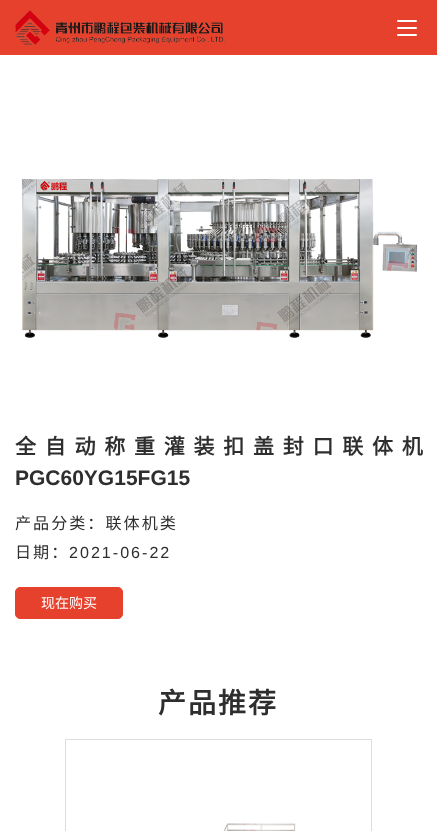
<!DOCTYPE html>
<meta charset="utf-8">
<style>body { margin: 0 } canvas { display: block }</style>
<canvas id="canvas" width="437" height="831"></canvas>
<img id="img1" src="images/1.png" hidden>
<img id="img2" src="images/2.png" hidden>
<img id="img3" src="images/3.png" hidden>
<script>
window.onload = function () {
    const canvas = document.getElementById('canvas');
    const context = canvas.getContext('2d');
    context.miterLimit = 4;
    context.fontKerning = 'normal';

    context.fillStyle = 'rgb(255, 255, 255)';
    context.fillRect(0, 0, 437, 831);
    context.fillStyle = 'rgb(230, 65, 45)';
    context.fillRect(0, 0, 437, 55);
    context.drawImage(document.getElementById('img1'), 15, 10, 210, 35);
    context.fillStyle = 'rgb(255, 255, 255)';
    context.beginPath();
    context.roundRect(397, 20, 20, 2, 1);
    context.fill();
    context.beginPath();
    context.roundRect(397, 27, 20, 2, 1);
    context.fill();
    context.beginPath();
    context.roundRect(397, 34, 20, 2, 1);
    context.fill();
    context.drawImage(document.getElementById('img2'), 22, 179, 396, 159);
    context.fillStyle = 'rgb(230, 65, 45)';
    context.beginPath();
    context.roundRect(15.5, 587.5, 107, 31, 4.5);
    context.fill();
    context.strokeStyle = 'rgb(230, 65, 45)';
    context.stroke();
    context.strokeStyle = 'rgb(221, 221, 221)';
    context.strokeRect(65.5, 739.5, 306, 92);
    context.drawImage(document.getElementById('img3'), 223, 823, 73, 8);
    context.letterSpacing = '8.75px';
    context.font = 'bold 21px Noto Sans CJK SC';
    context.fillStyle = 'rgb(46, 46, 46)';
    context.fillText('全自动称重灌装扣盖封口联体机', 15, 454);
    context.letterSpacing = '0px';
    context.font = 'bold 21px Liberation Sans';
    context.fillText('PGC60YG15FG15', 15, 485);
    context.letterSpacing = '2px';
    context.font = '16.1px Noto Sans CJK SC';
    context.fillText('产品分类：联体机类', 15, 529);
    context.fillText('日期：', 15, 558);
    context.font = '16.1px Liberation Sans';
    context.fillText('2021-06-22', 69, 558);
    context.letterSpacing = '0px';
    context.font = '14px Noto Sans CJK SC';
    context.fillStyle = 'rgb(255, 255, 255)';
    context.fillText('现在购买', 41, 608);
    context.letterSpacing = '2px';
    context.font = 'bold 28px Noto Sans CJK SC';
    context.fillStyle = 'rgb(46, 46, 46)';
    context.fillText('产品推荐', 158, 713);
};
</script>
